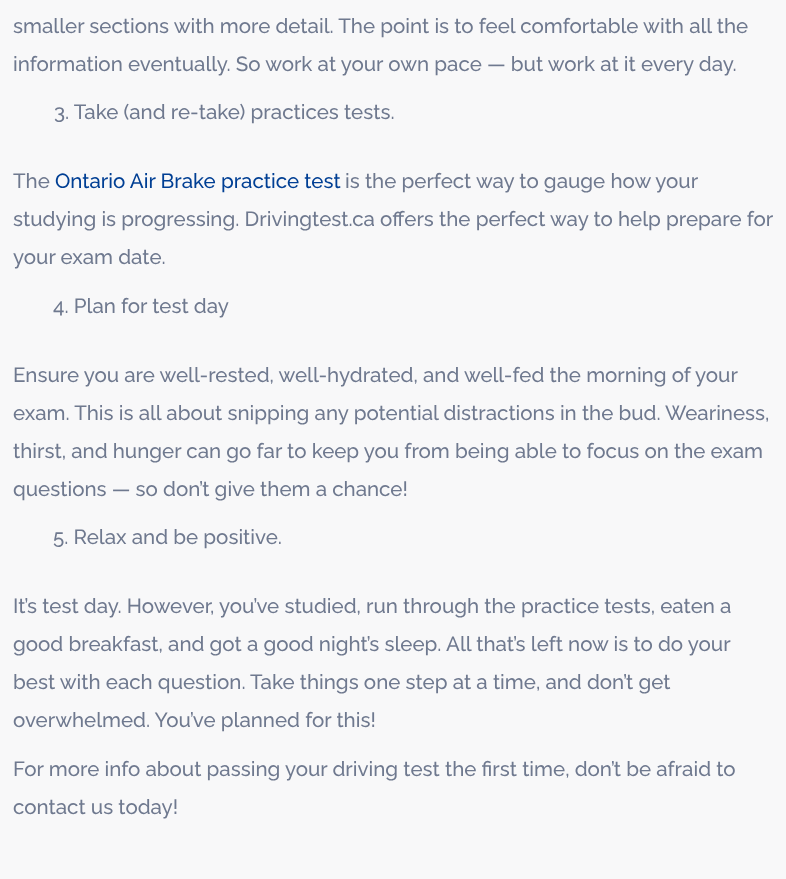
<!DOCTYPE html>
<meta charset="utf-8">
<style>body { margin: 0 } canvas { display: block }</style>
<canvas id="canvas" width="786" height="879"></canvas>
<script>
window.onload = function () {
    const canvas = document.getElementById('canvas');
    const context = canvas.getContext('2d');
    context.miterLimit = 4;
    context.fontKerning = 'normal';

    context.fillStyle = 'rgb(248, 248, 249)';
    context.fillRect(0, 0, 786, 879);
    context.font = '100 20.5px Raleway';
    context.fillStyle = 'rgb(111, 121, 143)';
    context.fillText('smaller sections with more detail. The point is to feel comfortable with all the', 13, 33);
    context.fillText('information eventually. So work at your own pace — but work at it every day.', 13, 71);
    context.fillText('3. Take (and re-take) practices tests.', 54, 119);
    context.fillText('The', 13, 188);
    context.fillStyle = 'rgb(0, 63, 148)';
    context.fillText('Ontario Air Brake practice test', 55, 188);
    context.fillStyle = 'rgb(111, 121, 143)';
    context.fillText('is the perfect way to gauge how your', 345, 188);
    context.fillText('studying is progressing. Drivingtest.ca offers the perfect way to help prepare for', 13, 226);
    context.fillText('your exam date.', 13, 264);
    context.fillText('4. Plan for test day', 53, 313);
    context.fillText('Ensure you are well-rested, well-hydrated, and well-fed the morning of your', 13, 382);
    context.fillText('exam. This is all about snipping any potential distractions in the bud. Weariness,', 13, 420);
    context.fillText('thirst, and hunger can go far to keep you from being able to focus on the exam', 13, 458);
    context.fillText('questions — so don’t give them a chance!', 13, 496);
    context.fillText('5. Relax and be positive.', 53, 544);
    context.fillText('It’s test day. However, you’ve studied, run through the practice tests, eaten a', 13, 613);
    context.fillText('good breakfast, and got a good night’s sleep. All that’s left now is to do your', 13, 651);
    context.fillText('best with each question. Take things one step at a time, and don’t get', 13, 689);
    context.fillText('overwhelmed. You’ve planned for this!', 13, 727);
    context.fillText('For more info about passing your driving test the first time, don’t be afraid to', 13, 776);
    context.fillText('contact us today!', 13, 814);
};
</script>
